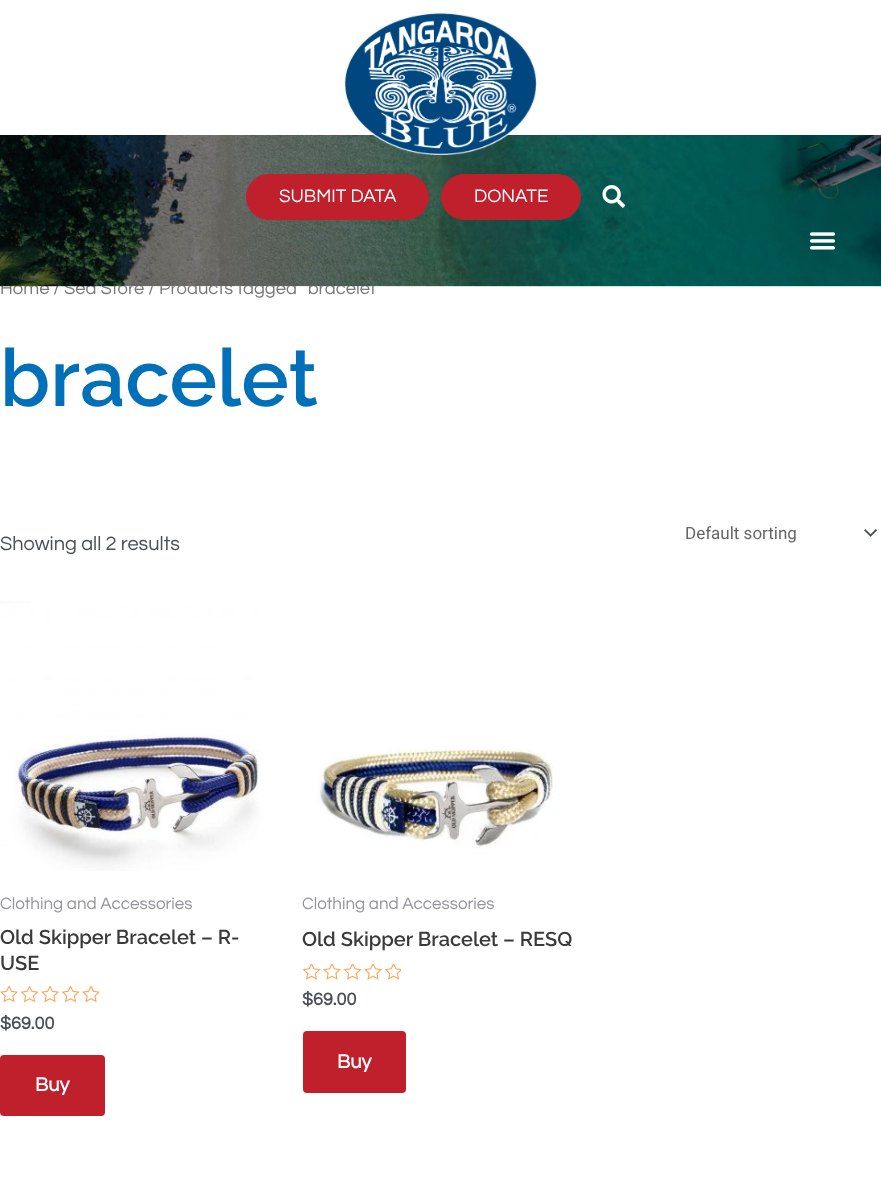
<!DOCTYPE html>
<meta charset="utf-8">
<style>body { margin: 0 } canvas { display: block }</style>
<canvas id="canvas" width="881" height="1194"></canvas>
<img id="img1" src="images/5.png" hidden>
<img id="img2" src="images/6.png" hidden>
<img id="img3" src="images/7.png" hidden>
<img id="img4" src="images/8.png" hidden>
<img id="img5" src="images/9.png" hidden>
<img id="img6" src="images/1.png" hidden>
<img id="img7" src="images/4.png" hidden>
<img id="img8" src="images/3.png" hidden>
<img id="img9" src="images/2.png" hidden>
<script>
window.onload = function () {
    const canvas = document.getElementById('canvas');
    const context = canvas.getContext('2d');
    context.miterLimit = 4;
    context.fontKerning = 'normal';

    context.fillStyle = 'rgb(255, 255, 255)';
    context.fillRect(0, 0, 881, 1194);
    context.drawImage(document.getElementById('img1'), 864, 529, 13, 8);
    context.drawImage(document.getElementById('img2'), 0, 601, 261, 270);
    context.drawImage(document.getElementById('img3'), 0, 986, 99, 17);
    context.fillStyle = 'rgb(191, 32, 43)';
    context.beginPath();
    context.roundRect(0, 1055, 105, 61, 4);
    context.fill();
    context.drawImage(document.getElementById('img4'), 317, 749, 236, 100);
    context.drawImage(document.getElementById('img5'), 303, 964, 98, 16);
    context.beginPath();
    context.roundRect(303, 1031, 103, 62, 4);
    context.fill();
    context.font = '18.4px Questrial';
    context.fillStyle = 'rgb(119, 119, 119)';
    context.fillText('Home / Sea Store / Products tagged “bracelet', 0, 294);
    context.drawImage(document.getElementById('img6'), 0, 135, 881, 152);
    context.drawImage(document.getElementById('img7'), 809, 232, 27, 18);
    context.drawImage(document.getElementById('img8'), 602, 185, 24, 23);
    context.fillStyle = 'rgb(191, 32, 43)';
    context.beginPath();
    context.roundRect(441.5, 174.5, 139, 45, 22.5);
    context.fill();
    context.strokeStyle = 'rgb(191, 32, 43)';
    context.stroke();
    context.font = '18.75px Questrial';
    context.fillStyle = 'rgb(255, 255, 255)';
    context.fillText('DONATE', 474, 202);
    context.fillStyle = 'rgb(191, 32, 43)';
    context.beginPath();
    context.roundRect(246.5, 174.5, 182, 45, 22.5);
    context.fill();
    context.stroke();
    context.fillStyle = 'rgb(255, 255, 255)';
    context.fillText('SUBMIT DATA', 279, 202);
    context.drawImage(document.getElementById('img9'), 344, 12, 194, 143);
    context.font = '600 80px Raleway';
    context.fillStyle = 'rgb(1, 112, 185)';
    context.fillText('bracelet', 0, 406);
    context.font = '20px Questrial';
    context.fillStyle = 'rgb(75, 79, 88)';
    context.fillText('Showing all 2 results', 0, 550);
    context.font = '17px Roboto';
    context.fillStyle = 'rgb(102, 102, 102)';
    context.fillText('Default sorting', 685, 539);
    context.font = '17px Questrial';
    context.fillStyle = 'rgb(147, 149, 155)';
    context.fillText('Clothing and Accessories', 0, 909);
    context.font = '600 20px Raleway';
    context.fillStyle = 'rgb(58, 58, 58)';
    context.fillText('Old Skipper Bracelet – R-', 0, 944);
    context.fillText('USE', 0, 970);
    context.font = 'bold 18px Questrial';
    context.fillStyle = 'rgb(75, 79, 88)';
    context.fillText('$69.00', 0, 1029);
    context.font = 'bold 20px Questrial';
    context.fillStyle = 'rgb(255, 255, 255)';
    context.fillText('Buy', 35, 1091);
    context.font = '17px Questrial';
    context.fillStyle = 'rgb(147, 149, 155)';
    context.fillText('Clothing and Accessories', 302, 909);
    context.font = '600 20px Raleway';
    context.fillStyle = 'rgb(58, 58, 58)';
    context.fillText('Old Skipper Bracelet – RESQ', 302, 946);
    context.font = 'bold 18px Questrial';
    context.fillStyle = 'rgb(75, 79, 88)';
    context.fillText('$69.00', 302, 1005);
    context.font = 'bold 20px Questrial';
    context.fillStyle = 'rgb(255, 255, 255)';
    context.fillText('Buy', 337, 1068);
};
</script>
